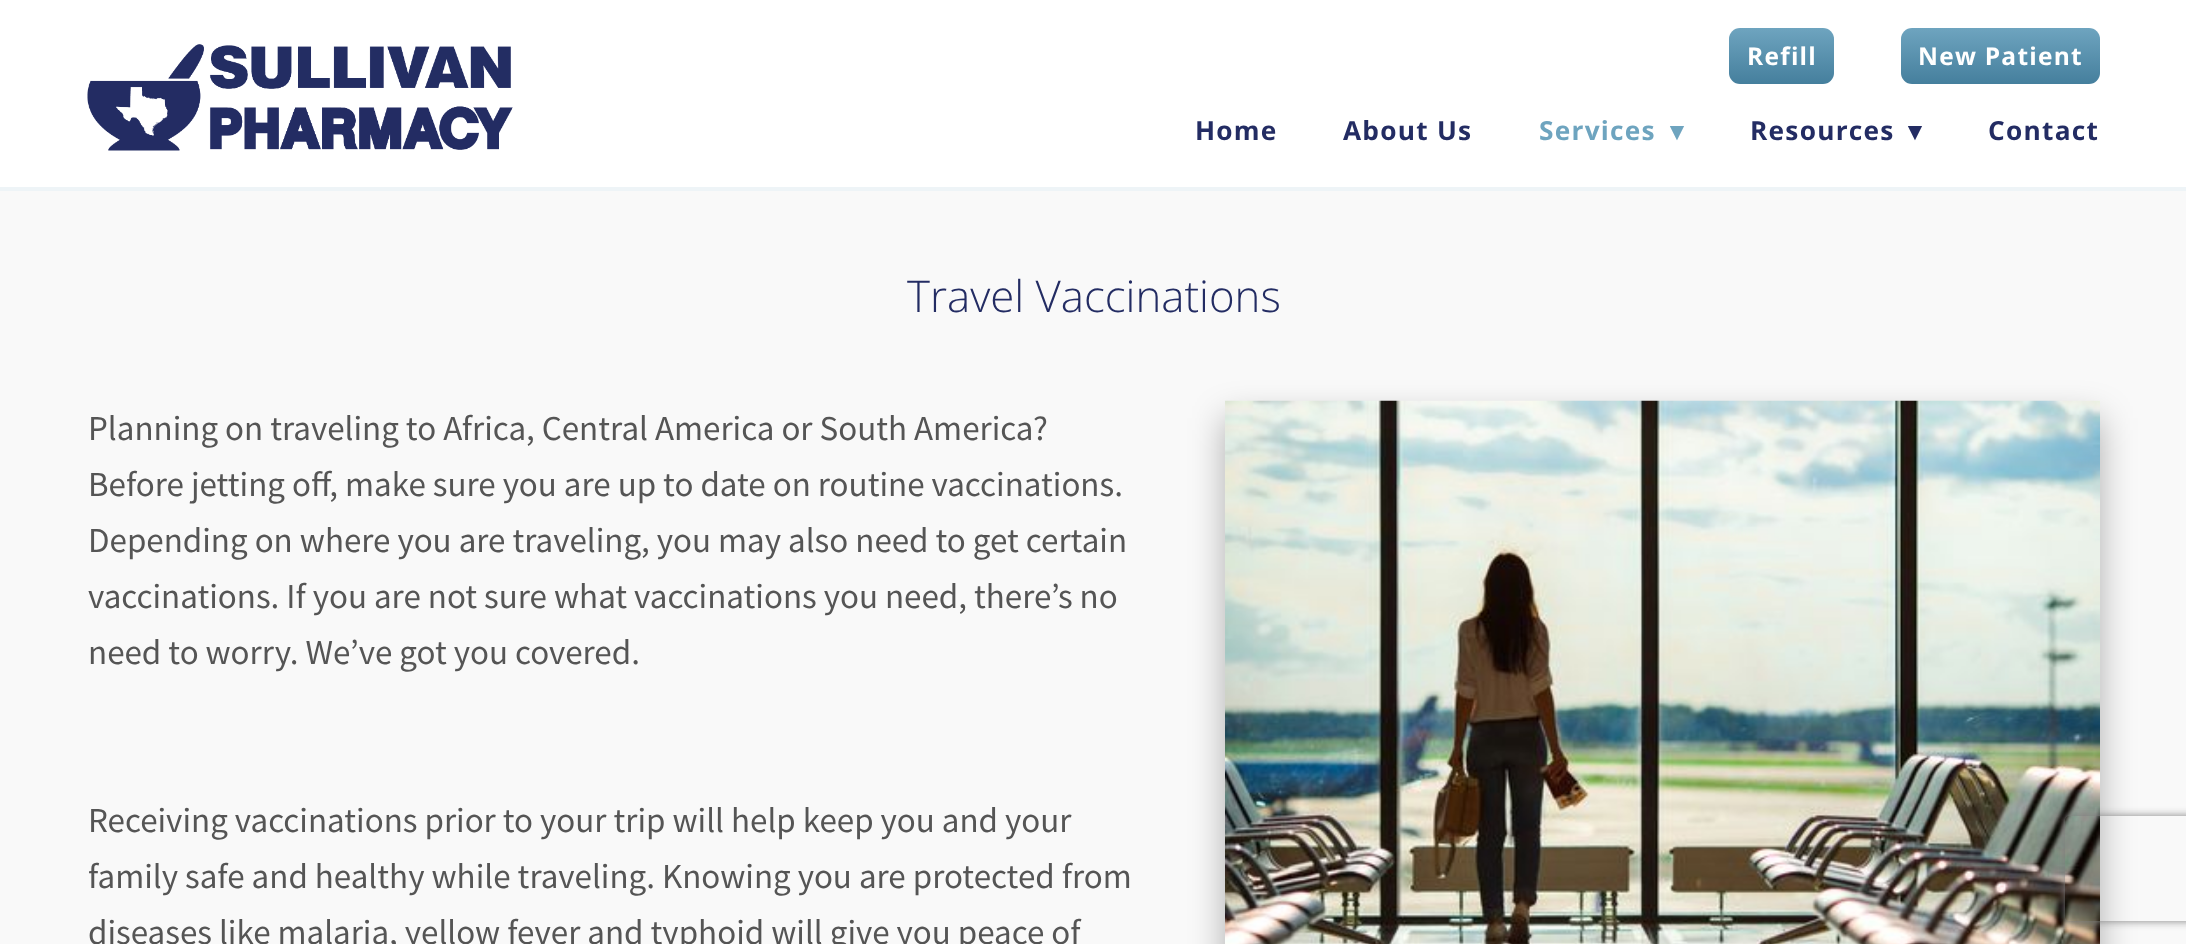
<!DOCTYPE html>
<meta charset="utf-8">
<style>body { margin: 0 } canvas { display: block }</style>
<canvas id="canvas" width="2186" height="944"></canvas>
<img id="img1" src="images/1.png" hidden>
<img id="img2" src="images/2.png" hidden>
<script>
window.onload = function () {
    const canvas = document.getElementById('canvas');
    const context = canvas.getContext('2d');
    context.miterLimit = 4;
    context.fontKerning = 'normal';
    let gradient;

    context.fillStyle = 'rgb(249, 249, 249)';
    context.fillRect(0, 0, 2186, 944);
    context.fillStyle = 'rgb(255, 255, 255)';
    context.fillRect(0, 0, 2186, 187);
    context.fillStyle = 'rgb(238, 244, 247)';
    context.fillRect(0, 187, 2186, 4);
    context.drawImage(document.getElementById('img1'), 87, 44, 426, 107);
    gradient = context.createLinearGradient(1782, 28, 1782, 84);
    gradient.addColorStop(0, 'rgb(110, 164, 191)');
    gradient.addColorStop(1, 'rgb(69, 127, 157)');
    context.fillStyle = gradient;
    context.beginPath();
    context.roundRect(1729, 28, 105, 56, 11);
    context.fill();
    gradient = context.createLinearGradient(2000, 28, 2000, 84);
    gradient.addColorStop(0, 'rgb(110, 164, 191)');
    gradient.addColorStop(1, 'rgb(69, 127, 157)');
    context.fillStyle = gradient;
    context.beginPath();
    context.roundRect(1901, 28, 199, 56, 11);
    context.fill();
    context.fillStyle = 'rgba(0, 0, 0, 0.3)';
    context.filter = 'blur(17.5px)';
    context.beginPath();
    context.rect(1225, 418, 875, 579);
    context.fill();
    context.filter = 'none';
    context.drawImage(document.getElementById('img2'), 1225, 400, 875, 544);
    context.save();
    context.beginPath();
    context.moveTo(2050, 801);
    context.lineTo(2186, 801);
    context.lineTo(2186, 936);
    context.lineTo(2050, 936);
    context.closePath();
    context.moveTo(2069, 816);
    context.lineTo(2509, 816);
    context.bezierCurveTo(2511, 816, 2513, 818, 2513, 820);
    context.lineTo(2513, 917);
    context.bezierCurveTo(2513, 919, 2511, 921, 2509, 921);
    context.lineTo(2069, 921);
    context.bezierCurveTo(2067, 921, 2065, 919, 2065, 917);
    context.lineTo(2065, 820);
    context.bezierCurveTo(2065, 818, 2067, 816, 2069, 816);
    context.closePath();
    context.clip('evenodd');
    context.fillStyle = 'rgb(128, 128, 128)';
    context.filter = 'blur(4.5px)';
    context.beginPath();
    context.roundRect(2065, 816, 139, 105, 4);
    context.fill();
    context.filter = 'none';
    context.restore();
    context.letterSpacing = '1.25px';
    context.font = 'bold 24.5px Open Sans';
    context.fillStyle = 'rgb(255, 255, 255)';
    context.fillText('Refill', 1747, 65);
    context.fillText('New Patient', 1918, 65);
    context.font = 'bold 26.25px Open Sans';
    context.fillStyle = 'rgb(35, 44, 99)';
    context.fillText('Home', 1195, 140);
    context.fillText('About Us', 1343, 140);
    context.fillStyle = 'rgb(110, 164, 191)';
    context.fillText('Services', 1539, 140);
    context.font = 'bold 26.25px DejaVu Sans';
    context.fillText('▾', 1670, 140);
    context.font = 'bold 26.25px Open Sans';
    context.fillStyle = 'rgb(35, 44, 99)';
    context.fillText('Resources', 1750, 140);
    context.font = 'bold 26.25px DejaVu Sans';
    context.fillText('▾', 1908, 140);
    context.font = 'bold 26.25px Open Sans';
    context.fillText('Contact', 1988, 140);
    context.letterSpacing = '0px';
    context.font = '300 43.75px Open Sans';
    context.fillText('Travel Vaccinations', 907, 312);
    context.font = '35px Source Sans Pro';
    context.fillStyle = 'rgb(85, 85, 85)';
    context.fillText('Planning on traveling to Africa, Central America or South America?', 88, 440);
    context.fillText('Before jetting off, make sure you are up to date on routine vaccinations.', 88, 496);
    context.fillText('Depending on where you are traveling, you may also need to get certain', 88, 552);
    context.fillText('vaccinations. If you are not sure what vaccinations you need, there’s no', 88, 608);
    context.fillText('need to worry. We’ve got you covered.', 88, 664);
    context.fillText('Receiving vaccinations prior to your trip will help keep you and your', 88, 832);
    context.fillText('family safe and healthy while traveling. Knowing you are protected from', 88, 888);
    context.fillText('diseases like malaria, yellow fever and typhoid will give you peace of', 88, 944);
};
</script>
